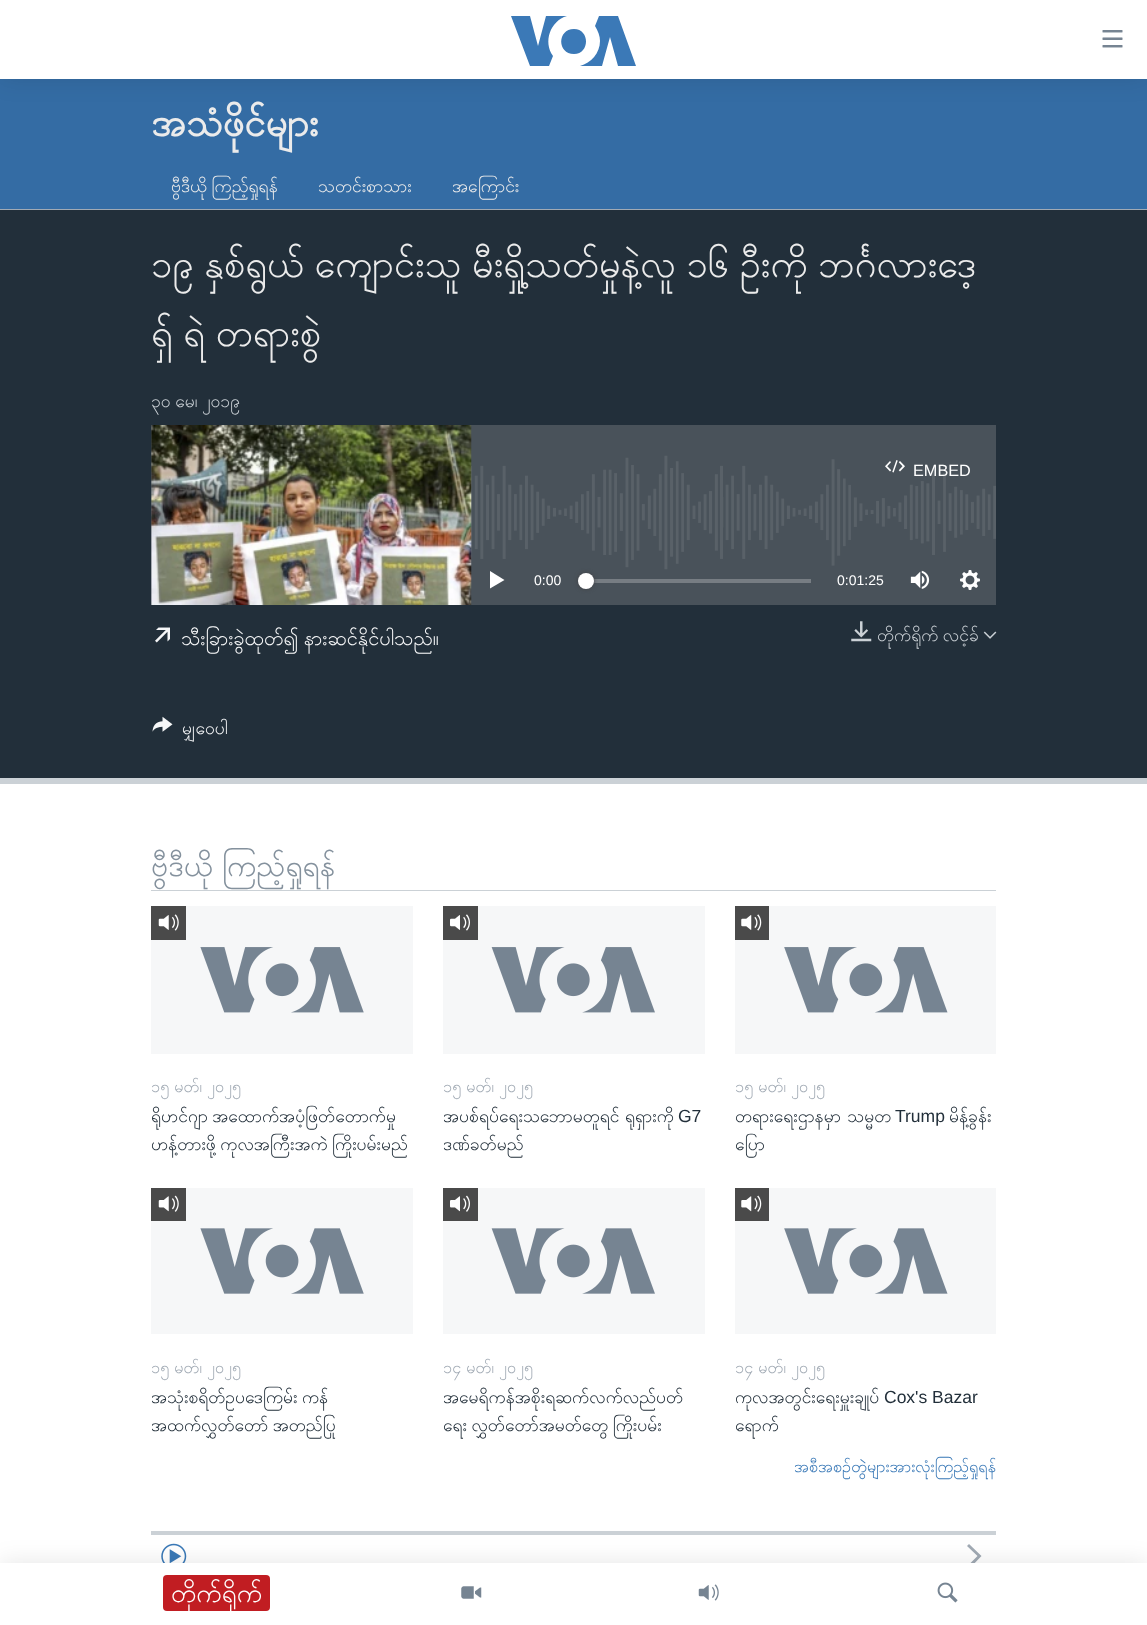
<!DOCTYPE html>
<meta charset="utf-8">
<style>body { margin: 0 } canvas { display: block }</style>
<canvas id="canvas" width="1147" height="1625"></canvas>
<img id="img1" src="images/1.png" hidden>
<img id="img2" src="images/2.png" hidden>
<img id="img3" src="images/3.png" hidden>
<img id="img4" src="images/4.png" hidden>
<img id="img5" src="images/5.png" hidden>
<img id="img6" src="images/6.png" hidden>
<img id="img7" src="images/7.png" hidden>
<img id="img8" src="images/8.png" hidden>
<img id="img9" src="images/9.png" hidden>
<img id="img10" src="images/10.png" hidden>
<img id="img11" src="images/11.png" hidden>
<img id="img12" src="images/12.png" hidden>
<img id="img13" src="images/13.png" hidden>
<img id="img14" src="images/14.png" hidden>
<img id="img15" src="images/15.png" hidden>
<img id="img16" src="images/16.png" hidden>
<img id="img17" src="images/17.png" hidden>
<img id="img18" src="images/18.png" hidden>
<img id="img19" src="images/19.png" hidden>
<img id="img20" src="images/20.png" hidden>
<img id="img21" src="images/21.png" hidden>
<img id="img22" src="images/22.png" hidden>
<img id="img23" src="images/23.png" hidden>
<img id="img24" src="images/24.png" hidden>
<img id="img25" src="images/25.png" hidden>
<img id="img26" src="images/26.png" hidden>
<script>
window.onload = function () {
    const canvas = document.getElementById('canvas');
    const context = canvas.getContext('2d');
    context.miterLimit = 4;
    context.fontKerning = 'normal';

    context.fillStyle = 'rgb(255, 255, 255)';
    context.fillRect(0, 0, 1147, 1625);
    context.fillStyle = 'rgb(52, 108, 164)';
    context.fillRect(0, 79, 1147, 130);
    context.fillStyle = 'rgb(34, 47, 58)';
    context.fillRect(0, 210, 1147, 568);
    context.fillStyle = 'rgb(161, 170, 180)';
    context.fillRect(0, 209, 1147, 1);
    context.fillStyle = 'rgb(203, 209, 214)';
    context.fillRect(0, 778, 1147, 6);
    context.fillStyle = 'rgb(73, 82, 90)';
    context.fillRect(151, 425, 845, 180);
    context.drawImage(document.getElementById('img1'), 151, 455, 845, 115);
    context.drawImage(document.getElementById('img2'), 151, 425, 321, 180);
    context.drawImage(document.getElementById('img3'), 885, 460, 20, 13);
    context.fillStyle = 'rgb(255, 255, 255)';
    context.beginPath();
    context.moveTo(490, 588.5);
    context.lineTo(504.5, 580);
    context.lineTo(490, 571);
    context.closePath();
    context.fill();
    context.fillStyle = 'rgb(119, 125, 131)';
    context.fillRect(585, 579, 226, 4);
    context.fillStyle = 'rgb(65, 65, 68)';
    context.filter = 'blur(2px)';
    context.beginPath();
    context.roundRect(578, 573, 16, 16, 8);
    context.fill();
    context.filter = 'none';
    context.fillStyle = 'rgb(255, 255, 255)';
    context.beginPath();
    context.arc(586, 581, 8, 0, 2 * Math.PI);
    context.fill();
    context.drawImage(document.getElementById('img4'), 910, 570, 20, 19);
    context.drawImage(document.getElementById('img5'), 960, 570, 20, 20);
    context.drawImage(document.getElementById('img6'), 155, 627, 15, 16);
    context.drawImage(document.getElementById('img7'), 851, 621, 21, 21);
    context.drawImage(document.getElementById('img8'), 983, 631, 14, 8);
    context.drawImage(document.getElementById('img9'), 152, 716, 21, 16);
    context.fillStyle = 'rgb(203, 209, 214)';
    context.fillRect(151, 890, 845, 1);
    context.fillStyle = 'rgb(246, 247, 248)';
    context.fillRect(151, 906, 262, 148);
    context.drawImage(document.getElementById('img10'), 200, 947, 164, 66);
    context.fillStyle = 'rgb(74, 74, 74)';
    context.fillRect(151, 906, 35, 34);
    context.drawImage(document.getElementById('img11'), 158, 914, 21, 17);
    context.fillStyle = 'rgb(246, 247, 248)';
    context.fillRect(443, 906, 262, 148);
    context.drawImage(document.getElementById('img12'), 491, 947, 164, 66);
    context.fillStyle = 'rgb(74, 74, 74)';
    context.fillRect(443, 906, 35, 34);
    context.drawImage(document.getElementById('img13'), 450, 914, 20, 17);
    context.fillStyle = 'rgb(246, 247, 248)';
    context.fillRect(735, 906, 261, 148);
    context.drawImage(document.getElementById('img14'), 784, 947, 164, 66);
    context.fillStyle = 'rgb(74, 74, 74)';
    context.fillRect(735, 906, 34, 34);
    context.drawImage(document.getElementById('img15'), 741, 914, 21, 17);
    context.fillStyle = 'rgb(246, 247, 248)';
    context.fillRect(151, 1188, 262, 146);
    context.drawImage(document.getElementById('img16'), 200, 1228, 164, 66);
    context.fillStyle = 'rgb(74, 74, 74)';
    context.fillRect(151, 1188, 35, 33);
    context.drawImage(document.getElementById('img17'), 158, 1195, 21, 17);
    context.fillStyle = 'rgb(246, 247, 248)';
    context.fillRect(443, 1188, 262, 146);
    context.drawImage(document.getElementById('img18'), 491, 1228, 164, 66);
    context.fillStyle = 'rgb(74, 74, 74)';
    context.fillRect(443, 1188, 35, 33);
    context.drawImage(document.getElementById('img19'), 450, 1195, 20, 17);
    context.fillStyle = 'rgb(246, 247, 248)';
    context.fillRect(735, 1188, 261, 146);
    context.drawImage(document.getElementById('img20'), 784, 1228, 164, 66);
    context.fillStyle = 'rgb(74, 74, 74)';
    context.fillRect(735, 1188, 34, 33);
    context.drawImage(document.getElementById('img21'), 741, 1195, 21, 17);
    context.fillStyle = 'rgb(203, 209, 214)';
    context.fillRect(151, 1531, 845, 4);
    context.drawImage(document.getElementById('img22'), 161, 1543, 26, 20);
    context.fillStyle = 'rgb(161, 170, 180)';
    context.beginPath();
    context.moveTo(969, 1569);
    context.lineTo(981.5, 1556);
    context.lineTo(969, 1544);
    context.lineTo(967, 1546);
    context.lineTo(977.5, 1556);
    context.lineTo(967, 1566.5);
    context.closePath();
    context.fill();
    context.fillStyle = 'rgba(0, 0, 0, 0.1)';
    context.filter = 'blur(12.5px)';
    context.beginPath();
    context.rect(0, 0, 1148, 79);
    context.fill();
    context.filter = 'none';
    context.fillStyle = 'rgb(255, 255, 255)';
    context.fillRect(0, 0, 1147, 79);
    context.fillStyle = 'rgb(59, 121, 183)';
    context.beginPath();
    context.moveTo(553, 56);
    context.lineTo(549, 66);
    context.lineTo(530, 66);
    context.lineTo(511, 16);
    context.lineTo(530, 16);
    context.lineTo(538, 46);
    context.lineTo(546, 16);
    context.lineTo(567, 16);
    context.bezierCurveTo(550, 21, 543, 42, 553, 56);
    context.closePath();
    context.moveTo(574, 29);
    context.bezierCurveTo(557, 29, 557, 54, 574, 54);
    context.bezierCurveTo(590, 54, 590, 29, 574, 29);
    context.closePath();
    context.moveTo(600, 41);
    context.bezierCurveTo(600, 53, 591, 63, 580, 66);
    context.lineTo(602, 66);
    context.lineTo(610, 37);
    context.lineTo(618, 66);
    context.lineTo(636, 66);
    context.lineTo(618, 16);
    context.lineTo(599, 16);
    context.lineTo(595, 26);
    context.bezierCurveTo(598, 31, 600, 36, 600, 41);
    context.closePath();
    context.fill();
    context.drawImage(document.getElementById('img23'), 1102, 30, 21, 18);
    context.fillStyle = 'rgba(0, 0, 0, 0.1)';
    context.filter = 'blur(12.5px)';
    context.beginPath();
    context.rect(0, 1563, 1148, 62);
    context.fill();
    context.filter = 'none';
    context.fillStyle = 'rgb(255, 255, 255)';
    context.fillRect(0, 1563, 1147, 62);
    context.fillStyle = 'rgb(193, 29, 34)';
    context.beginPath();
    context.roundRect(163, 1575, 107, 36, 4);
    context.fill();
    context.drawImage(document.getElementById('img24'), 461, 1586, 21, 13);
    context.drawImage(document.getElementById('img25'), 698, 1584, 21, 17);
    context.drawImage(document.getElementById('img26'), 937, 1582, 21, 21);
    context.font = 'bold 38px Padauk';
    context.fillStyle = 'rgb(235, 235, 235)';
    context.fillText('အသံဖိုင်များ', 151, 136);
    context.wordSpacing = '-2px';
    context.font = '17.5px Padauk';
    context.fillText('ဗွီဒီယို ကြည့်ရှုရန်', 171, 192);
    context.wordSpacing = '0px';
    context.fillText('သတင်းစာသား', 318, 192);
    context.fillText('အကြောင်း', 452, 192);
    context.wordSpacing = '-3.5px';
    context.font = '38px Padauk';
    context.fillText('၁၉ နှစ်ရွယ် ကျောင်းသူ မီးရှို့သတ်မှုနဲ့လူ ၁၆ ဦးကို ဘင်္ဂလားဒေ့', 151, 277);
    context.fillText('ရှ် ရဲ တရားစွဲ', 151, 346);
    context.wordSpacing = '-2px';
    context.font = '17.5px Padauk';
    context.fillStyle = 'rgb(203, 209, 214)';
    context.fillText('၃၀ မေ၊ ၂၀၁၉', 151, 407);
    context.wordSpacing = '0px';
    context.font = '16.25px Liberation Sans';
    context.fillStyle = 'rgb(255, 255, 255)';
    context.fillText('EMBED', 913, 476);
    context.font = '14px Liberation Sans';
    context.fillText('0:00', 534, 585);
    context.fillText('0:01:25', 837, 585);
    context.wordSpacing = '-2px';
    context.font = '20px Padauk';
    context.fillStyle = 'rgb(246, 247, 248)';
    context.fillText('သီးခြားခွဲထုတ်၍ နားဆင်နိုင်ပါသည်။', 181, 645);
    context.font = '17.5px Padauk';
    context.fillStyle = 'rgb(203, 209, 214)';
    context.fillText('တိုက်ရိုက် လင့်ခ်', 877, 641);
    context.wordSpacing = '0px';
    context.fillStyle = 'rgb(246, 247, 248)';
    context.fillText('မျှဝေပါ', 182, 734);
    context.wordSpacing = '-2px';
    context.font = '30px Padauk';
    context.fillStyle = 'rgb(132, 145, 157)';
    context.fillText('ဗွီဒီယို ကြည့်ရှုရန်', 151, 876);
    context.wordSpacing = '-1px';
    context.font = '16.25px Padauk';
    context.fillStyle = 'rgb(161, 170, 180)';
    context.fillText('၁၅ မတ်၊ ၂၀၂၅', 151, 1092);
    context.wordSpacing = '-2px';
    context.font = '17.5px Padauk';
    context.fillStyle = 'rgb(34, 47, 58)';
    context.fillText('ရိုဟင်ဂျာ အထောက်အပံ့ဖြတ်တောက်မှု', 151, 1122);
    context.fillText('ဟန့်တားဖို့ ကုလအကြီးအကဲ ကြိုးပမ်းမည်', 151, 1150);
    context.wordSpacing = '-1px';
    context.font = '16.25px Padauk';
    context.fillStyle = 'rgb(161, 170, 180)';
    context.fillText('၁၅ မတ်၊ ၂၀၂၅', 443, 1092);
    context.font = '17.5px Padauk';
    context.fillStyle = 'rgb(34, 47, 58)';
    context.fillText('အပစ်ရပ်ရေးသဘောမတူရင် ရုရှားကို', 443, 1122);
    context.wordSpacing = '0px';
    context.font = '17.5px Liberation Sans';
    context.fillText('G7', 678, 1122);
    context.font = '17.5px Padauk';
    context.fillText('ဒဏ်ခတ်မည်', 443, 1150);
    context.wordSpacing = '-1px';
    context.font = '16.25px Padauk';
    context.fillStyle = 'rgb(161, 170, 180)';
    context.fillText('၁၅ မတ်၊ ၂၀၂၅', 735, 1092);
    context.wordSpacing = '0px';
    context.font = '17.5px Padauk';
    context.fillStyle = 'rgb(34, 47, 58)';
    context.fillText('တရားရေးဌာနမှာ သမ္မတ', 735, 1122);
    context.font = '17.5px Liberation Sans';
    context.fillText('Trump', 895, 1122);
    context.font = '17.5px Padauk';
    context.fillText('မိန့်ခွန်း', 949, 1122);
    context.fillText('ပြော', 735, 1150);
    context.wordSpacing = '-1px';
    context.font = '16.25px Padauk';
    context.fillStyle = 'rgb(161, 170, 180)';
    context.fillText('၁၅ မတ်၊ ၂၀၂၅', 151, 1373);
    context.wordSpacing = '-2px';
    context.font = '17.5px Padauk';
    context.fillStyle = 'rgb(34, 47, 58)';
    context.fillText('အသုံးစရိတ်ဥပဒေကြမ်း ကန်', 151, 1403);
    context.fillText('အထက်လွှတ်တော် အတည်ပြု', 151, 1431);
    context.wordSpacing = '-1px';
    context.font = '16.25px Padauk';
    context.fillStyle = 'rgb(161, 170, 180)';
    context.fillText('၁၄ မတ်၊ ၂၀၂၅', 443, 1373);
    context.wordSpacing = '0px';
    context.font = '17.5px Padauk';
    context.fillStyle = 'rgb(34, 47, 58)';
    context.fillText('အမေရိကန်အစိုးရဆက်လက်လည်ပတ်', 443, 1403);
    context.wordSpacing = '-2px';
    context.fillText('ရေး လွှတ်တော်အမတ်တွေ ကြိုးပမ်း', 443, 1431);
    context.wordSpacing = '-1px';
    context.font = '16.25px Padauk';
    context.fillStyle = 'rgb(161, 170, 180)';
    context.fillText('၁၄ မတ်၊ ၂၀၂၅', 735, 1373);
    context.wordSpacing = '0px';
    context.font = '17.5px Padauk';
    context.fillStyle = 'rgb(34, 47, 58)';
    context.fillText('ကုလအတွင်းရေးမှူးချုပ်', 735, 1403);
    context.font = '17.5px Liberation Sans';
    context.fillText('Cox\'s Bazar', 884, 1403);
    context.font = '17.5px Padauk';
    context.fillText('ရောက်', 735, 1431);
    context.font = '16.25px Padauk';
    context.fillStyle = 'rgb(58, 121, 183)';
    context.fillText('အစီအစဉ်တွဲများအားလုံးကြည့်ရှုရန်', 794, 1472);
    context.font = '26px Padauk';
    context.fillStyle = 'rgb(255, 255, 255)';
    context.fillText('တိုက်ရိုက်', 171, 1602);
};
</script>
